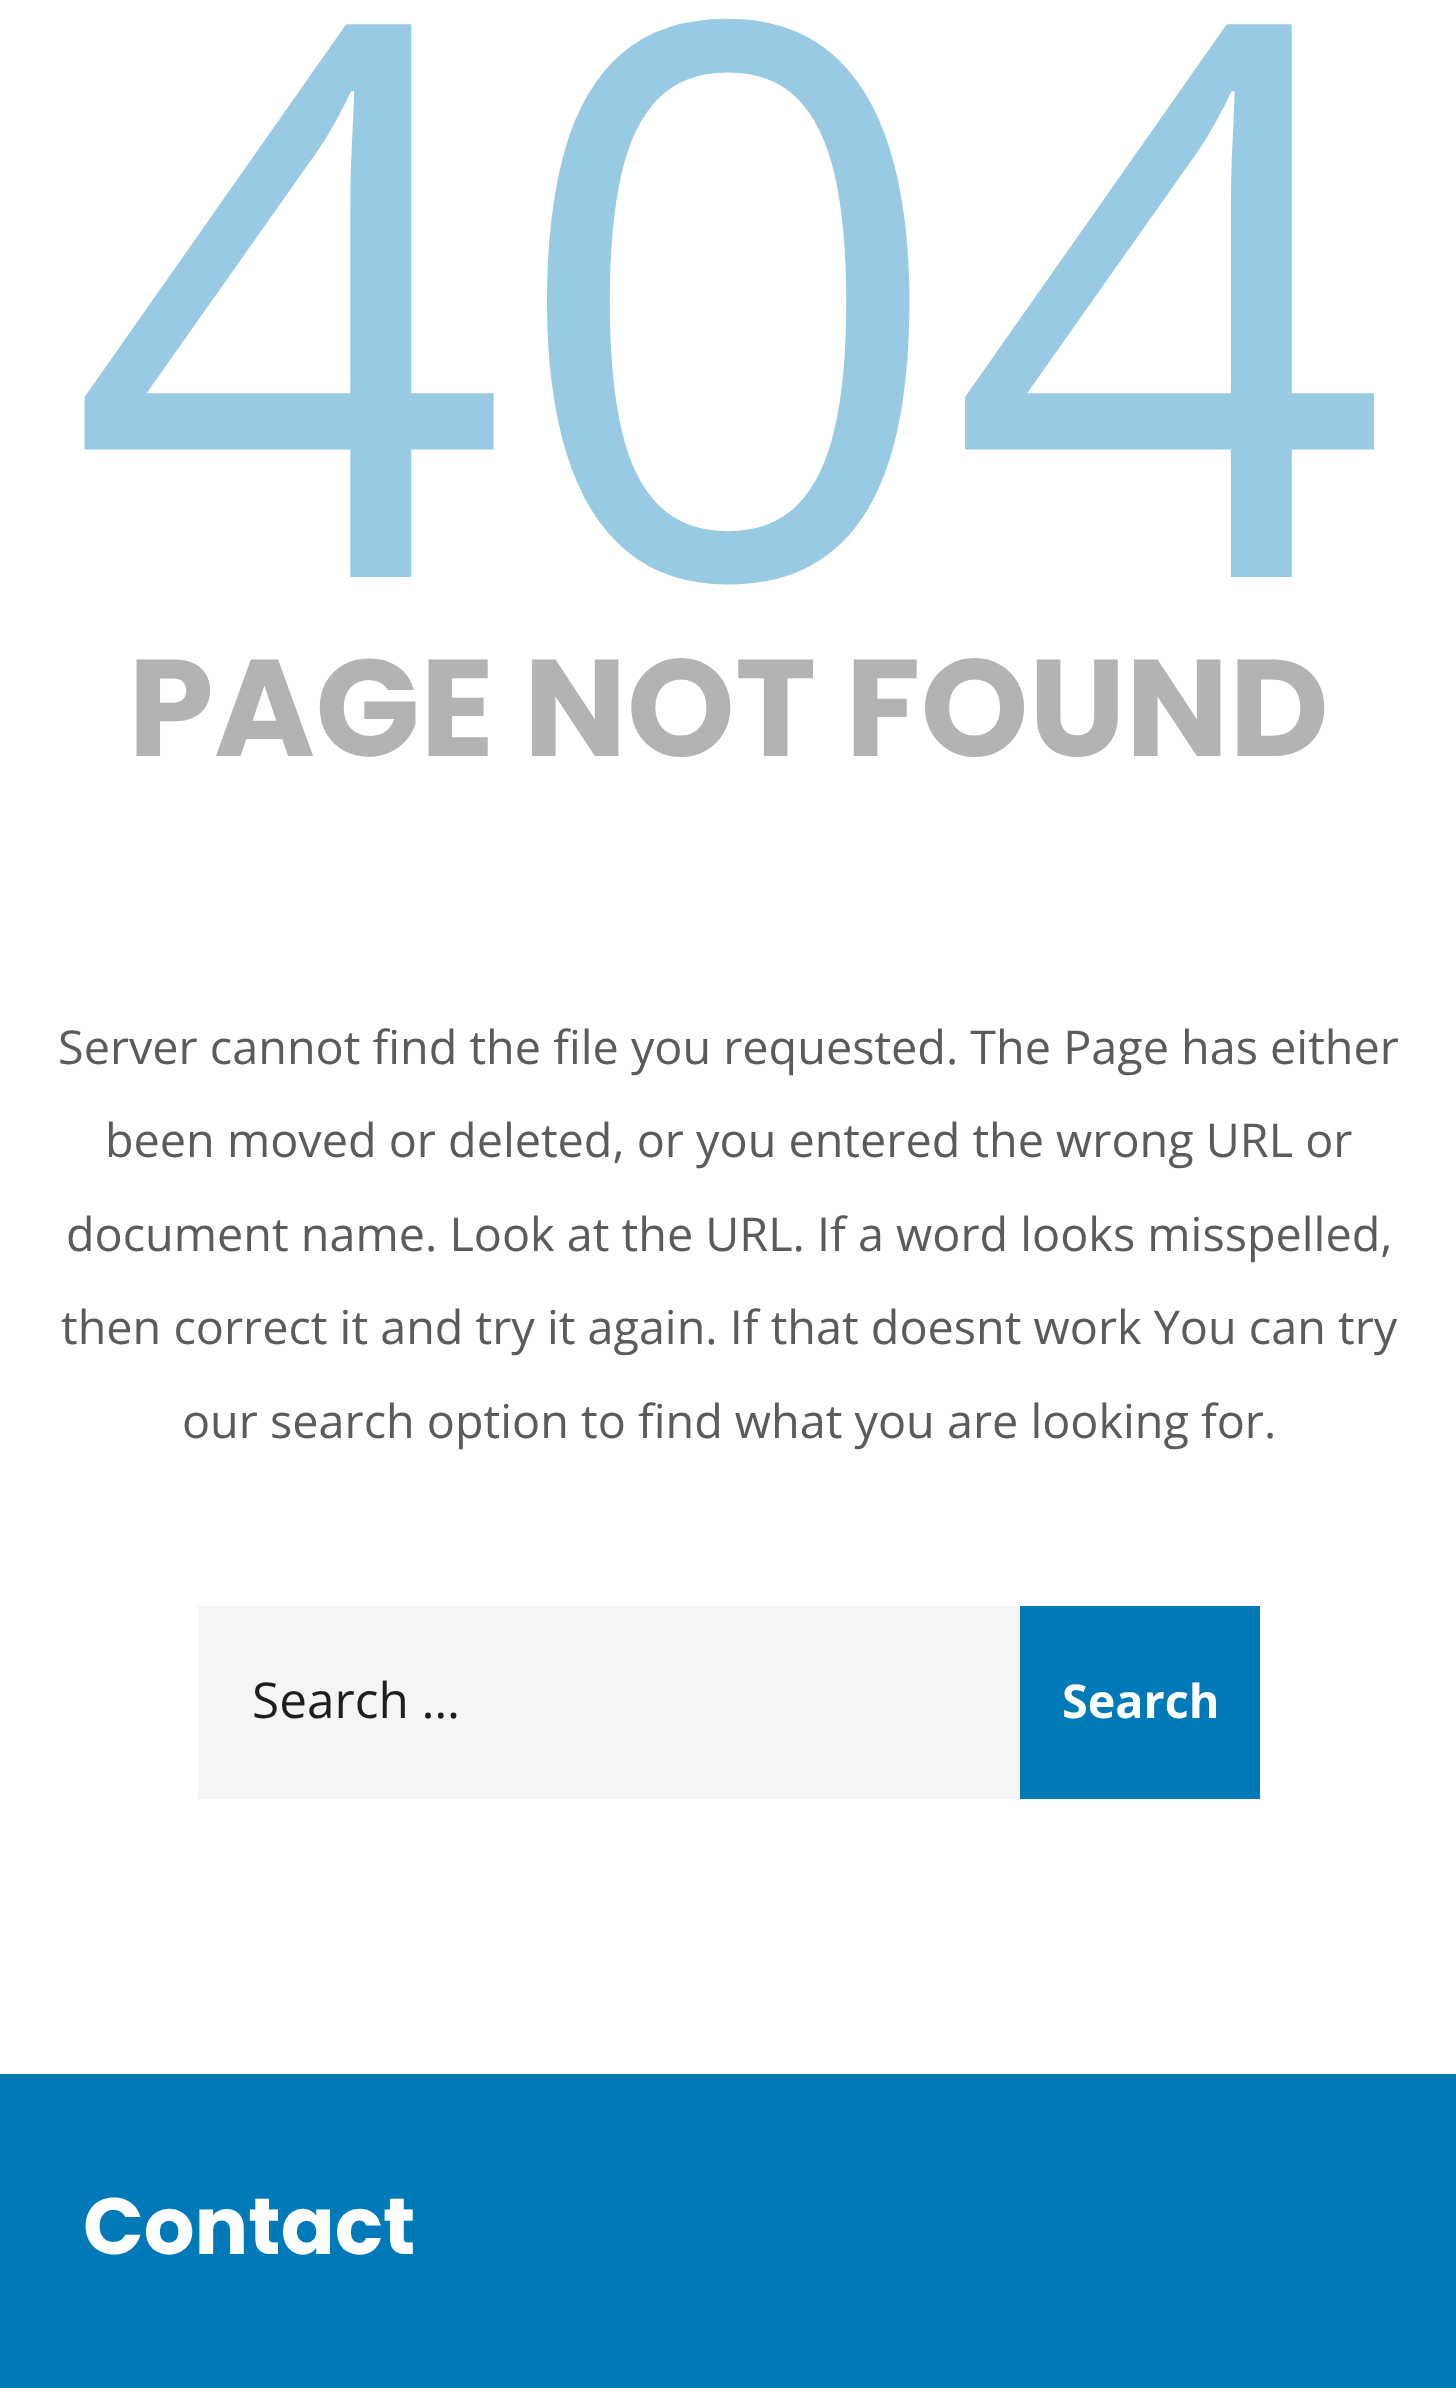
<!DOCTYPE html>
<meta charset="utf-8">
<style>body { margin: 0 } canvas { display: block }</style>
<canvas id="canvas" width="1456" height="2388"></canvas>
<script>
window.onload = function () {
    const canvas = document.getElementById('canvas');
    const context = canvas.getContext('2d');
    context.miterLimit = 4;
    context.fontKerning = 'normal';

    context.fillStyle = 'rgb(255, 255, 255)';
    context.fillRect(0, 0, 1456, 2388);
    context.fillStyle = 'rgb(245, 245, 245)';
    context.fillRect(198, 1606, 822, 193);
    context.fillStyle = 'rgb(0, 121, 184)';
    context.fillRect(1020, 1606, 240, 193);
    context.fillRect(0, 2074, 1456, 314);
    context.font = '770px Open Sans';
    context.fillStyle = 'rgb(153, 202, 227)';
    context.fillText('404', 68, 577);
    context.font = 'bold 137.5px Poppins';
    context.fillStyle = 'rgb(179, 179, 179)';
    context.fillText('PAGE NOT FOUND', 128, 756);
    context.font = '46.75px Open Sans';
    context.fillStyle = 'rgb(91, 91, 91)';
    context.fillText('Server cannot find the file you requested. The Page has either', 58, 1064);
    context.fillText('been moved or deleted, or you entered the wrong URL or', 105, 1157);
    context.fillText('document name. Look at the URL. If a word looks misspelled,', 66, 1251);
    context.fillText('then correct it and try it again. If that doesnt work You can try', 61, 1344);
    context.fillText('our search option to find what you are looking for.', 182, 1438);
    context.font = '49.5px Open Sans';
    context.fillStyle = 'rgb(30, 30, 30)';
    context.fillText('Search …', 252, 1718);
    context.font = 'bold 46.75px Open Sans';
    context.fillStyle = 'rgb(255, 255, 255)';
    context.fillText('Search', 1062, 1718);
    context.font = 'bold 79.75px Poppins';
    context.fillText('Contact', 83, 2254);
};
</script>
